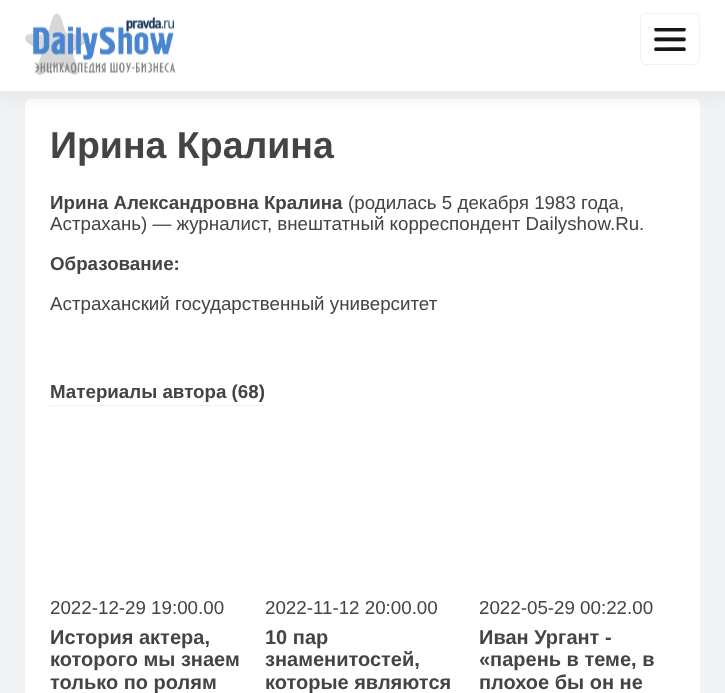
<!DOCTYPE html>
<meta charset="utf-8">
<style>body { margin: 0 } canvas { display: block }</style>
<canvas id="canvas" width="725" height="693"></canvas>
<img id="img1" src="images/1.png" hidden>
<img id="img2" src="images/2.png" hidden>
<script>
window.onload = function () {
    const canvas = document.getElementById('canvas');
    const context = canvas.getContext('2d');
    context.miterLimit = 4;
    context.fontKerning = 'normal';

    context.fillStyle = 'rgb(241, 243, 245)';
    context.fillRect(0, 0, 725, 693);
    context.fillStyle = 'rgb(255, 255, 255)';
    context.beginPath();
    context.roundRect(25, 99, 675, 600, 6);
    context.fill();
    context.fillStyle = 'rgba(0, 0, 0, 0.05)';
    context.filter = 'blur(9.5px)';
    context.beginPath();
    context.rect(-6, -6, 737, 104);
    context.fill();
    context.filter = 'none';
    context.fillStyle = 'rgb(255, 255, 255)';
    context.fillRect(0, 0, 725, 91);
    context.drawImage(document.getElementById('img1'), 25, 13, 151, 62);
    context.beginPath();
    context.roundRect(640.5, 13.5, 59, 51, 5.5);
    context.strokeStyle = 'rgb(241, 241, 241)';
    context.stroke();
    context.drawImage(document.getElementById('img2'), 654, 28, 32, 23);
    context.fillStyle = 'rgb(241, 241, 241)';
    context.fillRect(50, 405, 215, 1);
    context.font = 'bold 37.5px Liberation Sans';
    context.fillStyle = 'rgb(68, 68, 68)';
    context.fillText('Ирина Кралина', 50, 158);
    context.font = 'bold 18.75px Liberation Sans';
    context.fillText('Ирина Александровна Кралина', 50, 209);
    context.font = '18.75px Liberation Sans';
    context.fillText('(родилась 5 декабря 1983 года,', 348, 209);
    context.fillText('Астрахань) — журналист, внештатный корреспондент Dailyshow.Ru.', 50, 230);
    context.font = 'bold 18.75px Liberation Sans';
    context.fillText('Образование:', 50, 270);
    context.font = '18.75px Liberation Sans';
    context.fillText('Астраханский государственный университет', 50, 310);
    context.font = 'bold 18.75px Liberation Sans';
    context.fillText('Материалы автора (68)', 50, 398);
    context.font = '18.75px Liberation Sans';
    context.fillText('2022-12-29 19:00.00', 50, 614);
    context.font = 'bold 20px Liberation Sans';
    context.fillText('История актера,', 50, 644);
    context.fillText('которого мы знаем', 50, 666);
    context.fillText('только по ролям', 50, 689);
    context.font = '18.75px Liberation Sans';
    context.fillText('2022-11-12 20:00.00', 265, 614);
    context.font = 'bold 20px Liberation Sans';
    context.fillText('10 пар', 265, 644);
    context.fillText('знаменитостей,', 265, 666);
    context.fillText('которые являются', 265, 689);
    context.font = '18.75px Liberation Sans';
    context.fillText('2022-05-29 00:22.00', 479, 614);
    context.font = 'bold 20px Liberation Sans';
    context.fillText('Иван Ургант -', 479, 644);
    context.fillText('«парень в теме, в', 479, 666);
    context.fillText('плохое бы он не', 479, 689);
};
</script>
